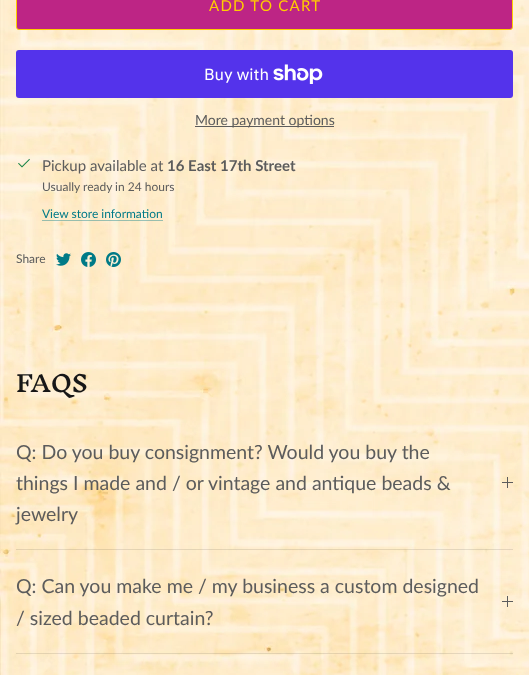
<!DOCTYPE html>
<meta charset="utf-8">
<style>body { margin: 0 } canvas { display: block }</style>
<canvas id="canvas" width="529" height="675"></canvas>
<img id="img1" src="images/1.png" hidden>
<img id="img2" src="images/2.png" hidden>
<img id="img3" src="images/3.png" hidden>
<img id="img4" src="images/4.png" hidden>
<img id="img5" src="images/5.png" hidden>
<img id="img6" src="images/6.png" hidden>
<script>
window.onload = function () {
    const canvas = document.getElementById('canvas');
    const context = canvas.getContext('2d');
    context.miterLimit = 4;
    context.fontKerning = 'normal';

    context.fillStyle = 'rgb(255, 255, 255)';
    context.fillRect(0, 0, 529, 675);
    context.drawImage(document.getElementById('img1'), 0, 0, 529, 675);
    context.fillStyle = 'rgb(189, 37, 133)';
    context.beginPath();
    context.roundRect(16.5, -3.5, 496, 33, 2.5);
    context.fill();
    context.strokeStyle = 'rgb(255, 206, 0)';
    context.stroke();
    context.fillStyle = 'rgb(84, 51, 235)';
    context.beginPath();
    context.roundRect(16, 50, 497, 48, 3);
    context.fill();
    context.drawImage(document.getElementById('img2'), 273, 64, 50, 20);
    context.fillStyle = 'rgb(92, 92, 92)';
    context.fillRect(195, 126, 139, 1);
    context.drawImage(document.getElementById('img3'), 18, 158, 12, 10);
    context.fillStyle = 'rgba(0, 122, 135, 0.4)';
    context.fillRect(42, 220, 121, 1);
    context.drawImage(document.getElementById('img4'), 56, 253, 15, 13);
    context.drawImage(document.getElementById('img5'), 81, 252, 15, 15);
    context.drawImage(document.getElementById('img6'), 106, 252, 15, 15);
    context.fillStyle = 'rgba(0, 0, 0, 0.1)';
    context.fillRect(16, 549, 497, 1);
    context.fillStyle = 'rgb(92, 92, 92)';
    context.fillRect(507, 477, 1, 11);
    context.fillRect(502, 482, 11, 1);
    context.fillStyle = 'rgba(0, 0, 0, 0.1)';
    context.fillRect(16, 653, 497, 1);
    context.fillStyle = 'rgb(92, 92, 92)';
    context.fillRect(507, 596, 1, 11);
    context.fillRect(502, 601, 11, 1);
    context.letterSpacing = '1.25px';
    context.font = '15px Lato';
    context.fillStyle = 'rgb(255, 206, 0)';
    context.fillText('ADD TO CART', 209, 11);
    context.fillStyle = 'rgb(189, 37, 133)';
    context.beginPath();
    context.moveTo(256.5, 5);
    context.lineTo(263.5, 11.5);
    context.lineTo(262.5, 12.5);
    context.lineTo(255.5, 6);
    context.closePath();
    context.fill();
    context.letterSpacing = '0px';
    context.font = '16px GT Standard';
    context.fillStyle = 'rgb(255, 255, 255)';
    context.fillText('Buy with', 204, 80);
    context.font = '14px Lato';
    context.fillStyle = 'rgb(92, 92, 92)';
    context.fillText('More payment options', 195, 125);
    context.font = '15px Lato';
    context.fillText('Pickup available at', 42, 171);
    context.font = 'bold 15px Lato';
    context.fillText('16 East 17th Street', 167, 171);
    context.font = '12px Lato';
    context.fillText('Usually ready in 24 hours', 42, 191);
    context.fillStyle = 'rgb(0, 122, 135)';
    context.fillText('View store information', 42, 218);
    context.fillStyle = 'rgb(92, 92, 92)';
    context.fillText('Share', 16, 263);
    context.font = '600 22.5px Inknut Antiqua';
    context.fillStyle = 'rgb(23, 23, 23)';
    context.fillText('FAQS', 16, 392);
    context.font = '19.5px Lato';
    context.fillStyle = 'rgb(92, 92, 92)';
    context.fillText('Q: Do you buy consignment? Would you buy the', 16, 459);
    context.fillText('things I made and / or vintage and antique beads &', 16, 490);
    context.fillText('jewelry', 16, 521);
    context.fillText('Q: Can you make me / my business a custom designed', 16, 593);
    context.fillText('/ sized beaded curtain?', 16, 625);
};
</script>
